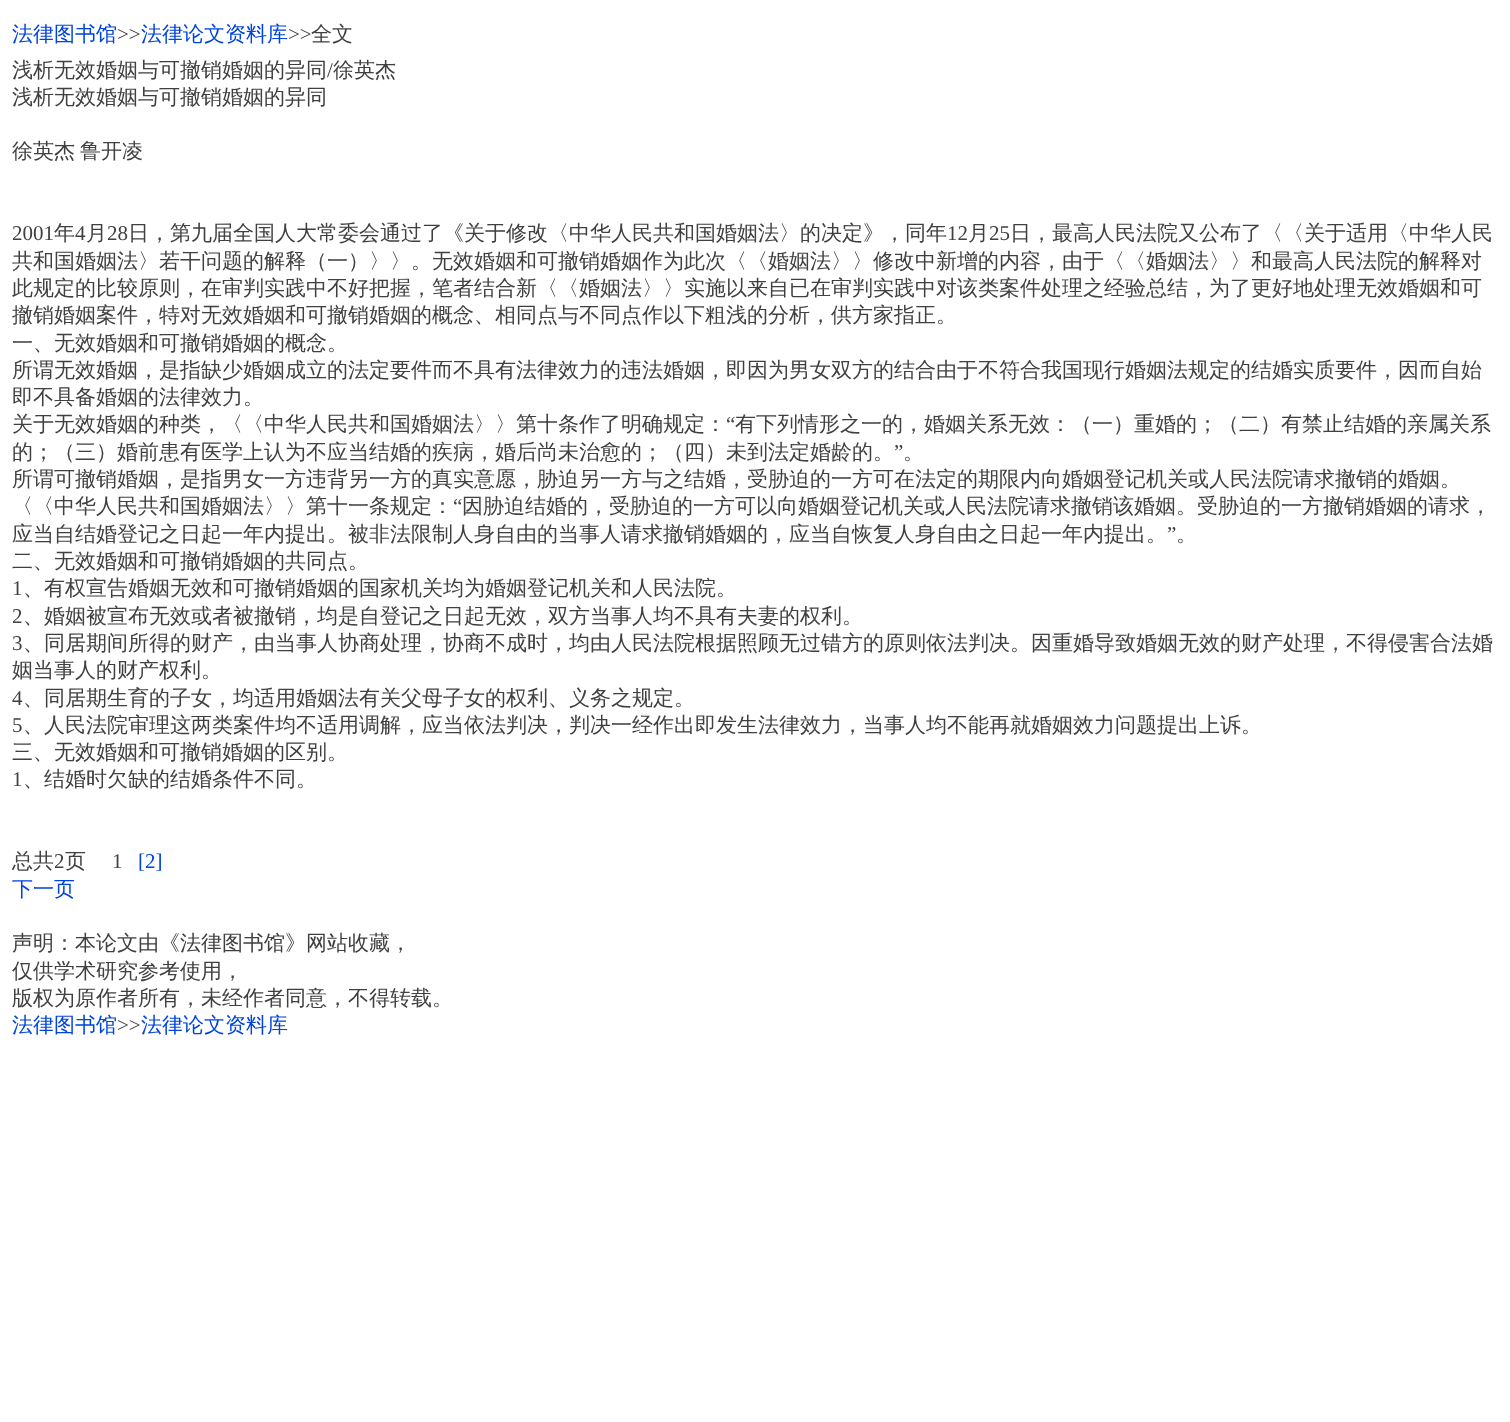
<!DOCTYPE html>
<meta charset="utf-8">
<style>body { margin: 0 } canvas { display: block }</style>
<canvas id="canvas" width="1510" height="1422"></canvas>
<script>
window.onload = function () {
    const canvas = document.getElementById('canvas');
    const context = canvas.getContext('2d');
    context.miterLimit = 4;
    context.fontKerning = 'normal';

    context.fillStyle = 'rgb(255, 255, 255)';
    context.fillRect(0, 0, 1510, 1422);
    context.font = '500 21px WenQuanYi Zen Hei';
    context.fillStyle = 'rgb(0, 68, 221)';
    context.fillText('法律图书馆', 12, 41);
    context.font = '21px Liberation Serif';
    context.fillStyle = 'rgb(64, 64, 64)';
    context.fillText('>>', 117, 41);
    context.font = '500 21px WenQuanYi Zen Hei';
    context.fillStyle = 'rgb(0, 68, 221)';
    context.fillText('法律论文资料库', 141, 41);
    context.font = '21px Liberation Serif';
    context.fillStyle = 'rgb(64, 64, 64)';
    context.fillText('>>', 288, 41);
    context.font = '500 21px WenQuanYi Zen Hei';
    context.fillText('全文', 311, 41);
    context.fillText('浅析无效婚姻与可撤销婚姻的异同', 12, 77);
    context.font = '21px Liberation Serif';
    context.fillText('/', 327, 77);
    context.font = '500 21px WenQuanYi Zen Hei';
    context.fillText('徐英杰', 333, 77);
    context.fillText('浅析无效婚姻与可撤销婚姻的异同', 12, 104);
    context.fillText('徐英杰', 12, 158);
    context.fillText('鲁开凌', 80, 158);
    context.font = '21px Liberation Serif';
    context.fillText('2001', 12, 240);
    context.font = '500 21px WenQuanYi Zen Hei';
    context.fillText('年', 54, 240);
    context.font = '21px Liberation Serif';
    context.fillText('4', 75, 240);
    context.font = '500 21px WenQuanYi Zen Hei';
    context.fillText('月', 86, 240);
    context.font = '21px Liberation Serif';
    context.fillText('28', 107, 240);
    context.font = '500 21px WenQuanYi Zen Hei';
    context.fillText('日，第九届全国人大常委会通过了《关于修改〈中华人民共和国婚姻法〉的决定》，同年', 128, 240);
    context.font = '21px Liberation Serif';
    context.fillText('12', 947, 240);
    context.font = '500 21px WenQuanYi Zen Hei';
    context.fillText('月', 968, 240);
    context.font = '21px Liberation Serif';
    context.fillText('25', 989, 240);
    context.font = '500 21px WenQuanYi Zen Hei';
    context.fillText('日，最高人民法院又公布了〈〈关于适用〈中华人民', 1010, 240);
    context.fillText('共和国婚姻法〉若干问题的解释（一）〉〉。无效婚姻和可撤销婚姻作为此次〈〈婚姻法〉〉修改中新增的内容，由于〈〈婚姻法〉〉和最高人民法院的解释对', 12, 268);
    context.fillText('此规定的比较原则，在审判实践中不好把握，笔者结合新〈〈婚姻法〉〉实施以来自已在审判实践中对该类案件处理之经验总结，为了更好地处理无效婚姻和可', 12, 295);
    context.fillText('撤销婚姻案件，特对无效婚姻和可撤销婚姻的概念、相同点与不同点作以下粗浅的分析，供方家指正。', 12, 322);
    context.fillText('一、无效婚姻和可撤销婚姻的概念。', 12, 350);
    context.fillText('所谓无效婚姻，是指缺少婚姻成立的法定要件而不具有法律效力的违法婚姻，即因为男女双方的结合由于不符合我国现行婚姻法规定的结婚实质要件，因而自始', 12, 377);
    context.fillText('即不具备婚姻的法律效力。', 12, 404);
    context.fillText('关于无效婚姻的种类，〈〈中华人民共和国婚姻法〉〉第十条作了明确规定：', 12, 431);
    context.font = '21px Liberation Serif';
    context.fillText('“', 726, 431);
    context.font = '500 21px WenQuanYi Zen Hei';
    context.fillText('有下列情形之一的，婚姻关系无效：（一）重婚的；（二）有禁止结婚的亲属关系', 735, 431);
    context.fillText('的；（三）婚前患有医学上认为不应当结婚的疾病，婚后尚未治愈的；（四）未到法定婚龄的。', 12, 459);
    context.font = '21px Liberation Serif';
    context.fillText('”', 894, 459);
    context.font = '500 21px WenQuanYi Zen Hei';
    context.fillText('。', 903, 459);
    context.fillText('所谓可撤销婚姻，是指男女一方违背另一方的真实意愿，胁迫另一方与之结婚，受胁迫的一方可在法定的期限内向婚姻登记机关或人民法院请求撤销的婚姻。', 12, 486);
    context.fillText('〈〈中华人民共和国婚姻法〉〉第十一条规定：', 12, 513);
    context.font = '21px Liberation Serif';
    context.fillText('“', 453, 513);
    context.font = '500 21px WenQuanYi Zen Hei';
    context.fillText('因胁迫结婚的，受胁迫的一方可以向婚姻登记机关或人民法院请求撤销该婚姻。受胁迫的一方撤销婚姻的请求，', 462, 513);
    context.fillText('应当自结婚登记之日起一年内提出。被非法限制人身自由的当事人请求撤销婚姻的，应当自恢复人身自由之日起一年内提出。', 12, 541);
    context.font = '21px Liberation Serif';
    context.fillText('”', 1167, 541);
    context.font = '500 21px WenQuanYi Zen Hei';
    context.fillText('。', 1176, 541);
    context.fillText('二、无效婚姻和可撤销婚姻的共同点。', 12, 568);
    context.font = '21px Liberation Serif';
    context.fillText('1', 12, 595);
    context.font = '500 21px WenQuanYi Zen Hei';
    context.fillText('、有权宣告婚姻无效和可撤销婚姻的国家机关均为婚姻登记机关和人民法院。', 23, 595);
    context.font = '21px Liberation Serif';
    context.fillText('2', 12, 623);
    context.font = '500 21px WenQuanYi Zen Hei';
    context.fillText('、婚姻被宣布无效或者被撤销，均是自登记之日起无效，双方当事人均不具有夫妻的权利。', 23, 623);
    context.font = '21px Liberation Serif';
    context.fillText('3', 12, 650);
    context.font = '500 21px WenQuanYi Zen Hei';
    context.fillText('、同居期间所得的财产，由当事人协商处理，协商不成时，均由人民法院根据照顾无过错方的原则依法判决。因重婚导致婚姻无效的财产处理，不得侵害合法婚', 23, 650);
    context.fillText('姻当事人的财产权利。', 12, 677);
    context.font = '21px Liberation Serif';
    context.fillText('4', 12, 705);
    context.font = '500 21px WenQuanYi Zen Hei';
    context.fillText('、同居期生育的子女，均适用婚姻法有关父母子女的权利、义务之规定。', 23, 705);
    context.font = '21px Liberation Serif';
    context.fillText('5', 12, 732);
    context.font = '500 21px WenQuanYi Zen Hei';
    context.fillText('、人民法院审理这两类案件均不适用调解，应当依法判决，判决一经作出即发生法律效力，当事人均不能再就婚姻效力问题提出上诉。', 23, 732);
    context.fillText('三、无效婚姻和可撤销婚姻的区别。', 12, 759);
    context.font = '21px Liberation Serif';
    context.fillText('1', 12, 786);
    context.font = '500 21px WenQuanYi Zen Hei';
    context.fillText('、结婚时欠缺的结婚条件不同。', 23, 786);
    context.fillText('总共', 12, 868);
    context.font = '21px Liberation Serif';
    context.fillText('2', 54, 868);
    context.font = '500 21px WenQuanYi Zen Hei';
    context.fillText('页', 65, 868);
    context.font = '21px Liberation Serif';
    context.fillText('1', 112, 868);
    context.fillStyle = 'rgb(0, 68, 221)';
    context.fillText('[2]', 138, 868);
    context.font = '500 21px WenQuanYi Zen Hei';
    context.fillText('下一页', 12, 896);
    context.fillStyle = 'rgb(64, 64, 64)';
    context.fillText('声明：本论文由《法律图书馆》网站收藏，', 12, 950);
    context.fillText('仅供学术研究参考使用，', 12, 978);
    context.fillText('版权为原作者所有，未经作者同意，不得转载。', 12, 1005);
    context.fillStyle = 'rgb(0, 68, 221)';
    context.fillText('法律图书馆', 12, 1032);
    context.font = '21px Liberation Serif';
    context.fillStyle = 'rgb(64, 64, 64)';
    context.fillText('>>', 117, 1032);
    context.font = '500 21px WenQuanYi Zen Hei';
    context.fillStyle = 'rgb(0, 68, 221)';
    context.fillText('法律论文资料库', 141, 1032);
};
</script>
